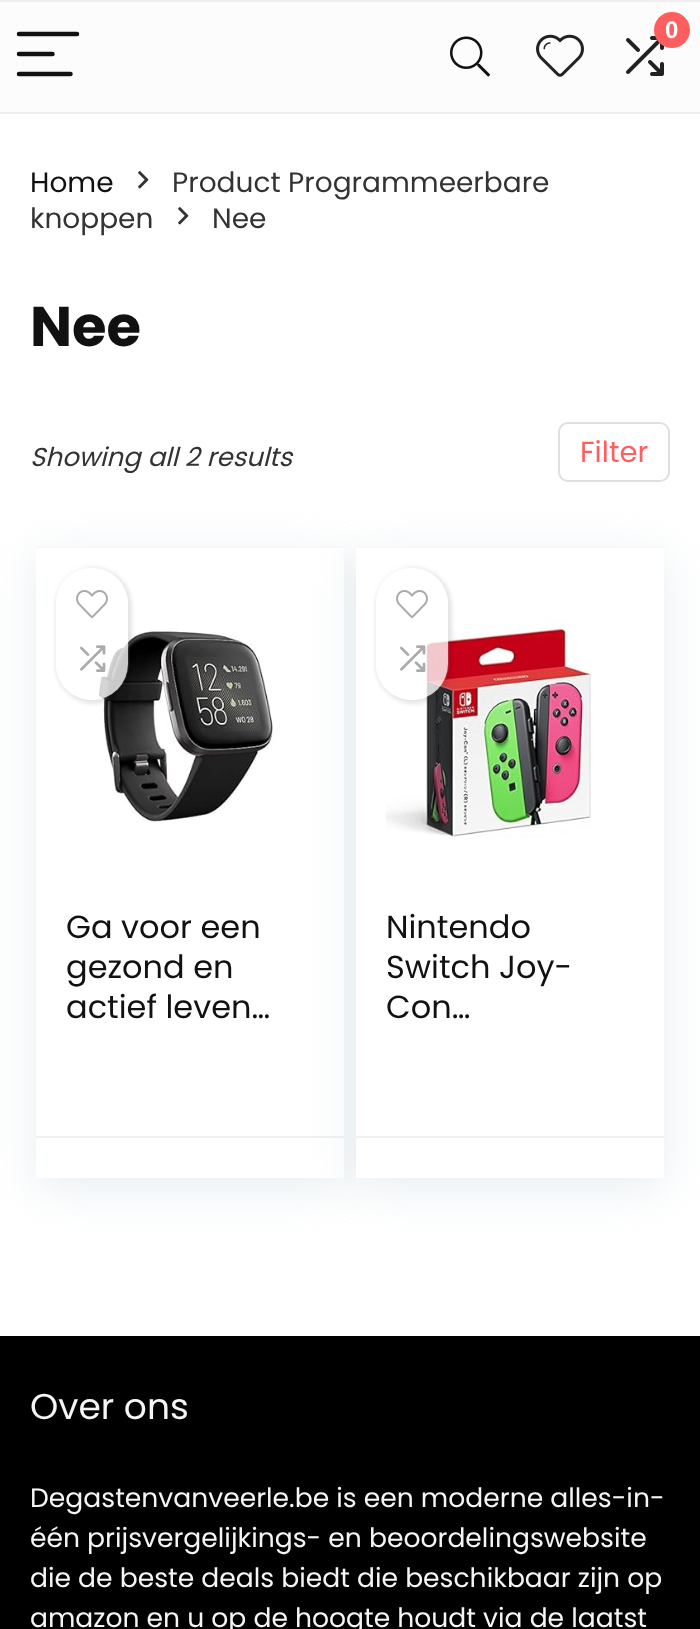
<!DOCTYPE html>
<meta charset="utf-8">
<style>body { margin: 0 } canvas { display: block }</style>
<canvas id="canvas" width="700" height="1629"></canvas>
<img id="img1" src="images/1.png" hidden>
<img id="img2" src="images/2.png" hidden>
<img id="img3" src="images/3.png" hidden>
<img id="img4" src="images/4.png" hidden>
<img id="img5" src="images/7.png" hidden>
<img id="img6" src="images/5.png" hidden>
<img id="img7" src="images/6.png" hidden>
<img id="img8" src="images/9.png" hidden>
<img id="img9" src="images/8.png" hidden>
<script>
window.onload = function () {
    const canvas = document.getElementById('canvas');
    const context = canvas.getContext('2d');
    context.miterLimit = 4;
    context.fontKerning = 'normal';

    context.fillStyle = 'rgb(255, 255, 255)';
    context.fillRect(0, 0, 700, 1629);
    context.fillStyle = 'rgb(252, 252, 252)';
    context.fillRect(0, 2, 700, 110);
    context.fillStyle = 'rgb(238, 238, 238)';
    context.fillRect(0, 0, 700, 2);
    context.fillRect(0, 112, 700, 2);
    context.beginPath();
    context.moveTo(19, 34);
    context.lineTo(77, 34);
    context.strokeStyle = 'rgb(17, 17, 17)';
    context.lineWidth = 4.5;
    context.lineCap = 'round';
    context.stroke();
    context.beginPath();
    context.moveTo(19, 54);
    context.lineTo(52.5, 54);
    context.moveTo(19, 74);
    context.lineTo(70.5, 74);
    context.stroke();
    context.drawImage(document.getElementById('img1'), 626, 36, 38, 40);
    context.fillStyle = 'rgb(255, 94, 94)';
    context.beginPath();
    context.arc(672, 30, 18, 0, 2 * Math.PI);
    context.fill();
    context.drawImage(document.getElementById('img2'), 450, 36, 40, 41);
    context.drawImage(document.getElementById('img3'), 536, 34, 48, 43);
    context.drawImage(document.getElementById('img4'), 138, 171, 11, 18);
    context.drawImage(document.getElementById('img4'), 178, 207, 11, 18);
    context.beginPath();
    context.roundRect(559, 423, 110, 58, 9);
    context.strokeStyle = 'rgb(220, 224, 224)';
    context.lineWidth = 2;
    context.stroke();
    context.save();
    context.beginPath();
    context.moveTo(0, 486);
    context.lineTo(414, 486);
    context.lineTo(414, 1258);
    context.lineTo(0, 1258);
    context.closePath();
    context.moveTo(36, 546);
    context.lineTo(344, 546);
    context.lineTo(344, 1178);
    context.lineTo(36, 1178);
    context.closePath();
    context.clip('evenodd');
    context.fillStyle = 'rgba(188, 207, 219, 0.35)';
    context.filter = 'blur(23px)';
    context.beginPath();
    context.rect(36, 556, 308, 632);
    context.fill();
    context.filter = 'none';
    context.restore();
    context.fillStyle = 'rgb(248, 248, 248)';
    context.fillRect(36, 546, 308, 2);
    context.drawImage(document.getElementById('img5'), 97, 631, 180, 191);
    context.save();
    context.beginPath();
    context.moveTo(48, 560);
    context.lineTo(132, 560);
    context.lineTo(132, 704);
    context.lineTo(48, 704);
    context.closePath();
    context.moveTo(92, 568);
    context.bezierCurveTo(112, 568, 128, 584, 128, 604);
    context.lineTo(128, 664);
    context.bezierCurveTo(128, 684, 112, 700, 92, 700);
    context.bezierCurveTo(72, 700, 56, 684, 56, 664);
    context.lineTo(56, 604);
    context.bezierCurveTo(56, 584, 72, 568, 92, 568);
    context.closePath();
    context.clip('evenodd');
    context.fillStyle = 'rgba(247, 251, 255, 0.5)';
    context.filter = 'blur(1px)';
    context.beginPath();
    context.roundRect(52, 564, 76, 136, 38);
    context.fill();
    context.filter = 'none';
    context.restore();
    context.save();
    context.beginPath();
    context.moveTo(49, 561);
    context.lineTo(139, 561);
    context.lineTo(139, 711);
    context.lineTo(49, 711);
    context.closePath();
    context.moveTo(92, 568);
    context.bezierCurveTo(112, 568, 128, 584, 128, 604);
    context.lineTo(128, 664);
    context.bezierCurveTo(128, 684, 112, 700, 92, 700);
    context.bezierCurveTo(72, 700, 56, 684, 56, 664);
    context.lineTo(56, 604);
    context.bezierCurveTo(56, 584, 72, 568, 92, 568);
    context.closePath();
    context.clip('evenodd');
    context.fillStyle = 'rgba(0, 0, 0, 0.1)';
    context.filter = 'blur(2px)';
    context.beginPath();
    context.roundRect(56, 568, 76, 136, 38);
    context.fill();
    context.filter = 'none';
    context.restore();
    context.fillStyle = 'rgba(255, 255, 255, 0.78)';
    context.beginPath();
    context.roundRect(56, 568, 72, 132, 36);
    context.fill();
    context.drawImage(document.getElementById('img6'), 76, 590, 32, 28);
    context.drawImage(document.getElementById('img7'), 80, 645, 26, 27);
    context.fillStyle = 'rgb(240, 240, 240)';
    context.fillRect(36, 1136, 308, 2);
    context.fillStyle = 'rgba(188, 207, 219, 0.35)';
    context.filter = 'blur(23px)';
    context.beginPath();
    context.rect(356, 556, 308, 632);
    context.fill();
    context.filter = 'none';
    context.fillStyle = 'rgb(255, 255, 255)';
    context.fillRect(356, 548, 308, 630);
    context.fillStyle = 'rgb(248, 248, 248)';
    context.fillRect(356, 546, 308, 2);
    context.drawImage(document.getElementById('img8'), 386, 618, 205, 221);
    context.save();
    context.beginPath();
    context.moveTo(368, 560);
    context.lineTo(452, 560);
    context.lineTo(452, 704);
    context.lineTo(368, 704);
    context.closePath();
    context.moveTo(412, 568);
    context.bezierCurveTo(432, 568, 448, 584, 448, 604);
    context.lineTo(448, 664);
    context.bezierCurveTo(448, 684, 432, 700, 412, 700);
    context.bezierCurveTo(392, 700, 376, 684, 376, 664);
    context.lineTo(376, 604);
    context.bezierCurveTo(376, 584, 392, 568, 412, 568);
    context.closePath();
    context.clip('evenodd');
    context.fillStyle = 'rgba(247, 251, 255, 0.5)';
    context.filter = 'blur(1px)';
    context.beginPath();
    context.roundRect(372, 564, 76, 136, 38);
    context.fill();
    context.filter = 'none';
    context.restore();
    context.save();
    context.beginPath();
    context.moveTo(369, 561);
    context.lineTo(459, 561);
    context.lineTo(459, 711);
    context.lineTo(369, 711);
    context.closePath();
    context.moveTo(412, 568);
    context.bezierCurveTo(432, 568, 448, 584, 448, 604);
    context.lineTo(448, 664);
    context.bezierCurveTo(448, 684, 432, 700, 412, 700);
    context.bezierCurveTo(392, 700, 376, 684, 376, 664);
    context.lineTo(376, 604);
    context.bezierCurveTo(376, 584, 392, 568, 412, 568);
    context.closePath();
    context.clip('evenodd');
    context.fillStyle = 'rgba(0, 0, 0, 0.1)';
    context.filter = 'blur(2px)';
    context.beginPath();
    context.roundRect(376, 568, 76, 136, 38);
    context.fill();
    context.filter = 'none';
    context.restore();
    context.fillStyle = 'rgba(255, 255, 255, 0.78)';
    context.beginPath();
    context.roundRect(376, 568, 72, 132, 36);
    context.fill();
    context.drawImage(document.getElementById('img6'), 396, 590, 32, 28);
    context.drawImage(document.getElementById('img9'), 400, 645, 26, 27);
    context.fillStyle = 'rgb(240, 240, 240)';
    context.fillRect(356, 1136, 308, 2);
    context.fillStyle = 'rgb(0, 0, 0)';
    context.fillRect(0, 1336, 700, 293);
    context.font = 'bold 24px Liberation Sans';
    context.fillStyle = 'rgb(255, 255, 255)';
    context.fillText('0', 665, 38);
    context.font = '28px Poppins';
    context.fillStyle = 'rgb(17, 17, 17)';
    context.fillText('Home', 30, 192);
    context.fillStyle = 'rgb(51, 51, 51)';
    context.fillText('Product Programmeerbare', 172, 192);
    context.fillText('knoppen', 30, 228);
    context.fillText('Nee', 212, 228);
    context.font = 'bold 56px Poppins';
    context.fillStyle = 'rgb(17, 17, 17)';
    context.fillText('Nee', 30, 346);
    context.font = 'italic 26px Poppins';
    context.fillStyle = 'rgb(51, 51, 51)';
    context.fillText('Showing all 2 results', 30, 466);
    context.font = '29px Poppins';
    context.fillStyle = 'rgb(255, 94, 94)';
    context.fillText('Filter', 580, 462);
    context.font = '32px Poppins';
    context.fillStyle = 'rgb(17, 17, 17)';
    context.fillText('Ga voor een', 66, 938);
    context.fillText('gezond en', 66, 978);
    context.fillText('actief leven…', 66, 1018);
    context.fillText('Nintendo', 386, 938);
    context.fillText('Switch Joy-', 386, 978);
    context.fillText('Con…', 386, 1018);
    context.font = '36px Poppins';
    context.fillStyle = 'rgb(245, 245, 245)';
    context.fillText('Over ons', 30, 1419);
    context.font = '26.6px Poppins';
    context.fillText('Degastenvanveerle.be is een moderne alles-in-', 30, 1507);
    context.fillText('één prijsvergelijkings- en beoordelingswebsite', 30, 1547);
    context.fillText('die de beste deals biedt die beschikbaar zijn op', 30, 1587);
    context.fillText('amazon en u op de hoogte houdt via de laatst', 30, 1627);
};
</script>
